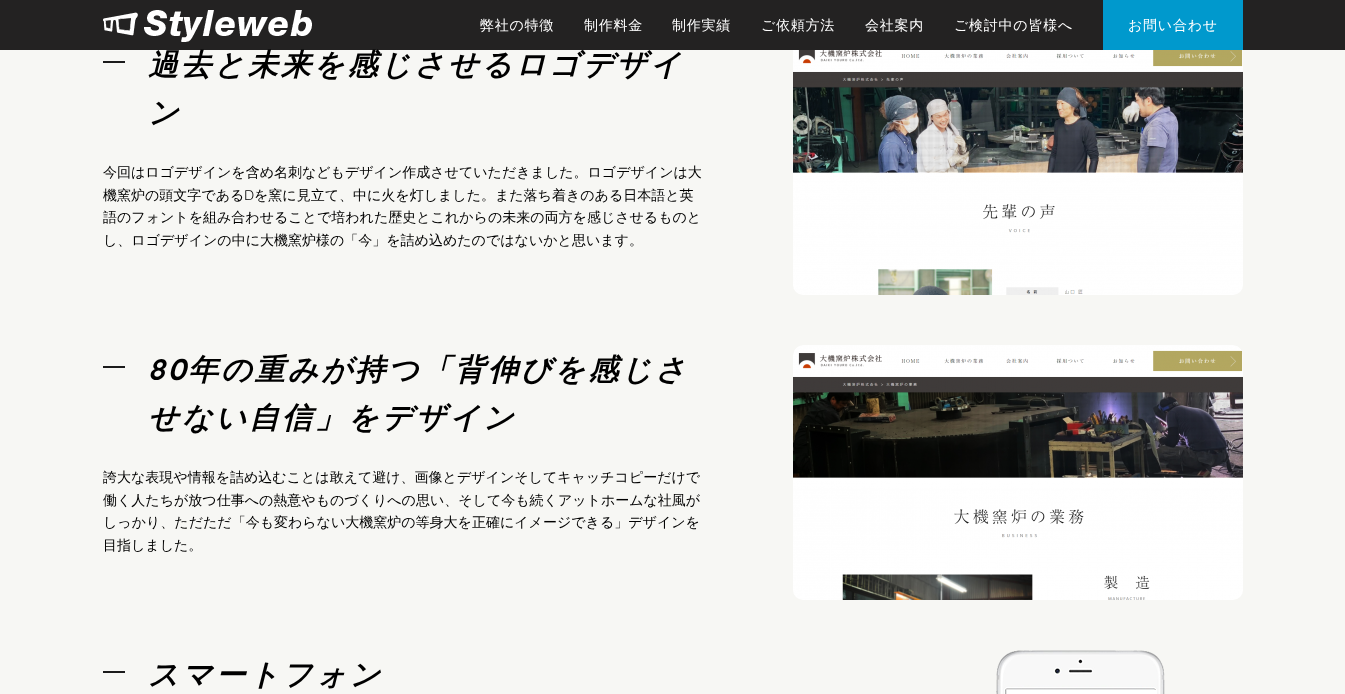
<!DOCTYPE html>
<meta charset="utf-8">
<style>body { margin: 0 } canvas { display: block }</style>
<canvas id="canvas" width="1345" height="694"></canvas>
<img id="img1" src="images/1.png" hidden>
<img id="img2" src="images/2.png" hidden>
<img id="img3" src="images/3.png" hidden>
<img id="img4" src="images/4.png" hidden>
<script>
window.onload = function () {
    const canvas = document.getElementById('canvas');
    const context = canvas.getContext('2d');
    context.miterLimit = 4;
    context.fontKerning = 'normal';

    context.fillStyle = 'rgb(247, 247, 244)';
    context.fillRect(0, 0, 1345, 694);
    context.fillStyle = 'rgb(35, 34, 34)';
    context.fillRect(0, 0, 1345, 50);
    context.drawImage(document.getElementById('img1'), 103, 10, 209, 32);
    context.fillStyle = 'rgb(0, 153, 205)';
    context.fillRect(1103, 0, 140, 50);
    context.fillStyle = 'rgb(27, 27, 27)';
    context.fillRect(103, 61, 22, 2);
    context.drawImage(document.getElementById('img2'), 793, 50, 450, 245);
    context.fillRect(103, 366, 22, 2);
    context.drawImage(document.getElementById('img3'), 793, 345, 450, 255);
    context.fillRect(103, 671, 22, 2);
    context.drawImage(document.getElementById('img4'), 996, 650, 169, 44);
    context.fillStyle = 'rgb(255, 255, 255)';
    context.fillRect(1007, 690, 149, 4);
    context.letterSpacing = '0.75px';
    context.font = '500 14px WenQuanYi Zen Hei';
    context.fillText('弊社の特徴', 480, 30);
    context.fillText('制作料金', 584, 30);
    context.fillText('制作実績', 672, 30);
    context.fillText('ご依頼方法', 761, 30);
    context.fillText('会社案内', 865, 30);
    context.fillText('ご検討中の皆様へ', 954, 30);
    context.fillText('お問い合わせ', 1128, 30);
    context.letterSpacing = '3px';
    context.font = 'italic bold 30px WenQuanYi Zen Hei';
    context.fillStyle = 'rgb(0, 0, 0)';
    context.fillText('過去と未来を感じさせるロゴデザイ', 148, 75);
    context.fillText('ン', 148, 123);
    context.letterSpacing = '0px';
    context.font = '500 14px WenQuanYi Zen Hei';
    context.fillText('今回はロゴデザインを含め名刺などもデザイン作成させていただきました。ロゴデザインは大', 103, 177);
    context.fillText('機窯炉の頭文字である', 103, 200);
    context.font = '14px Quicksand';
    context.fillText('D', 244, 200);
    context.font = '500 14px WenQuanYi Zen Hei';
    context.fillText('を窯に見立て、中に火を灯しました。また落ち着きのある日本語と英', 254, 200);
    context.fillText('語のフォントを組み合わせることで培われた歴史とこれからの未来の両方を感じさせるものと', 103, 222);
    context.fillText('し、ロゴデザインの中に大機窯炉様の「今」を詰め込めたのではないかと思います。', 103, 245);
    context.letterSpacing = '3px';
    context.font = 'italic bold 30px Quicksand';
    context.fillText('80', 148, 380);
    context.font = 'italic bold 30px WenQuanYi Zen Hei';
    context.fillText('年の重みが持つ「背伸びを感じさ', 188, 380);
    context.fillText('せない自信」をデザイン', 148, 428);
    context.letterSpacing = '0px';
    context.font = '500 14px WenQuanYi Zen Hei';
    context.fillText('誇大な表現や情報を詰め込むことは敢えて避け、画像とデザインそしてキャッチコピーだけで', 103, 482);
    context.fillText('働く人たちが放つ仕事への熱意やものづくりへの思い、そして今も続くアットホームな社風が', 103, 505);
    context.fillText('しっかり、ただただ「今も変わらない大機窯炉の等身大を正確にイメージできる」デザインを', 103, 527);
    context.fillText('目指しました。', 103, 550);
    context.letterSpacing = '3px';
    context.font = 'italic bold 30px WenQuanYi Zen Hei';
    context.fillText('スマートフォン', 148, 685);
};
</script>
